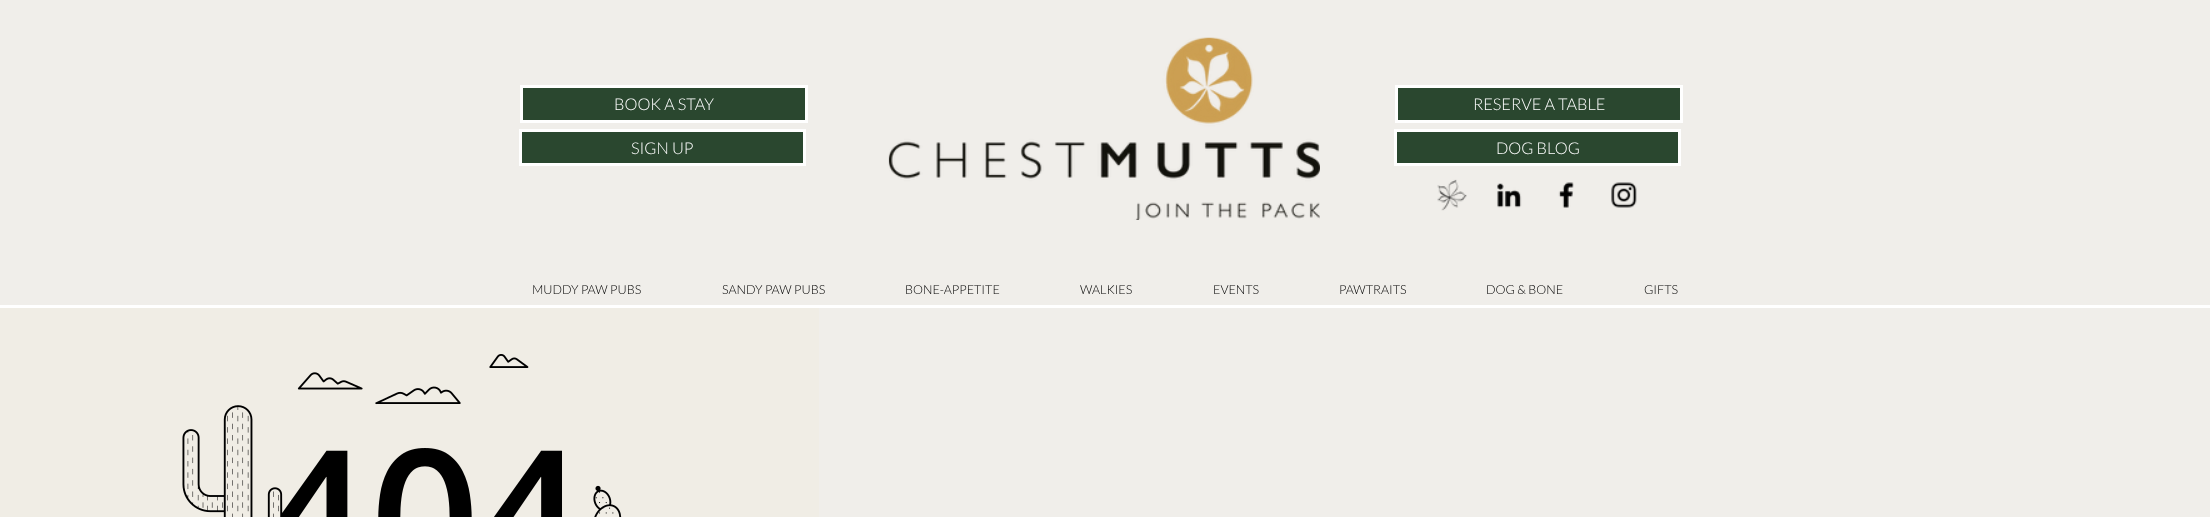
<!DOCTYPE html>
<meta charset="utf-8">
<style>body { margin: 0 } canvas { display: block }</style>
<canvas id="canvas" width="2210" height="517"></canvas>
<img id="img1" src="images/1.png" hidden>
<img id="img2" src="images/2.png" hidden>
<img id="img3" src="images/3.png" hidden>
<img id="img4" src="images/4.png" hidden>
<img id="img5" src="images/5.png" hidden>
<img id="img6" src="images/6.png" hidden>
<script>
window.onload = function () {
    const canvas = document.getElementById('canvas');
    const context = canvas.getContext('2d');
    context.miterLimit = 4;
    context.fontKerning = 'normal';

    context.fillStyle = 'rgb(240, 238, 234)';
    context.fillRect(0, 0, 2210, 517);
    context.fillStyle = 'rgb(42, 71, 47)';
    context.beginPath();
    context.rect(521.5, 86.5, 285, 35);
    context.fill();
    context.strokeStyle = 'rgb(255, 255, 255)';
    context.lineWidth = 3;
    context.stroke();
    context.drawImage(document.getElementById('img1'), 888, 37, 432, 183);
    context.beginPath();
    context.rect(1396.5, 86.5, 285, 35);
    context.fill();
    context.stroke();
    context.beginPath();
    context.rect(520.5, 130.5, 284, 34);
    context.fill();
    context.stroke();
    context.beginPath();
    context.rect(1395.5, 130.5, 284, 34);
    context.fill();
    context.stroke();
    context.drawImage(document.getElementById('img2'), 1437, 179, 30, 32);
    context.drawImage(document.getElementById('img3'), 1497, 183, 25, 25);
    context.drawImage(document.getElementById('img4'), 1558, 182, 16, 26);
    context.drawImage(document.getElementById('img5'), 1611, 182, 26, 26);
    context.fillStyle = 'rgb(255, 255, 255)';
    context.fillRect(0, 305, 2210, 3);
    context.fillStyle = 'rgb(240, 237, 229)';
    context.fillRect(0, 308, 819, 209);
    context.drawImage(document.getElementById('img6'), 182, 354, 440, 163);
    context.font = '300 16.25px Lato';
    context.fillStyle = 'rgb(255, 255, 255)';
    context.fillText('BOOK A STAY', 614, 110);
    context.fillText('RESERVE A TABLE', 1473, 110);
    context.fillText('SIGN UP', 631, 154);
    context.fillText('DOG BLOG', 1496, 154);
    context.font = '300 12.5px Lato';
    context.fillStyle = 'rgb(0, 0, 0)';
    context.fillText('MUDDY PAW PUBS', 532, 294);
    context.fillText('SANDY PAW PUBS', 722, 294);
    context.fillText('BONE-APPETITE', 905, 294);
    context.fillText('WALKIES', 1080, 294);
    context.fillText('EVENTS', 1213, 294);
    context.fillText('PAWTRAITS', 1339, 294);
    context.fillText('DOG & BONE', 1486, 294);
    context.fillText('GIFTS', 1644, 294);
};
</script>
